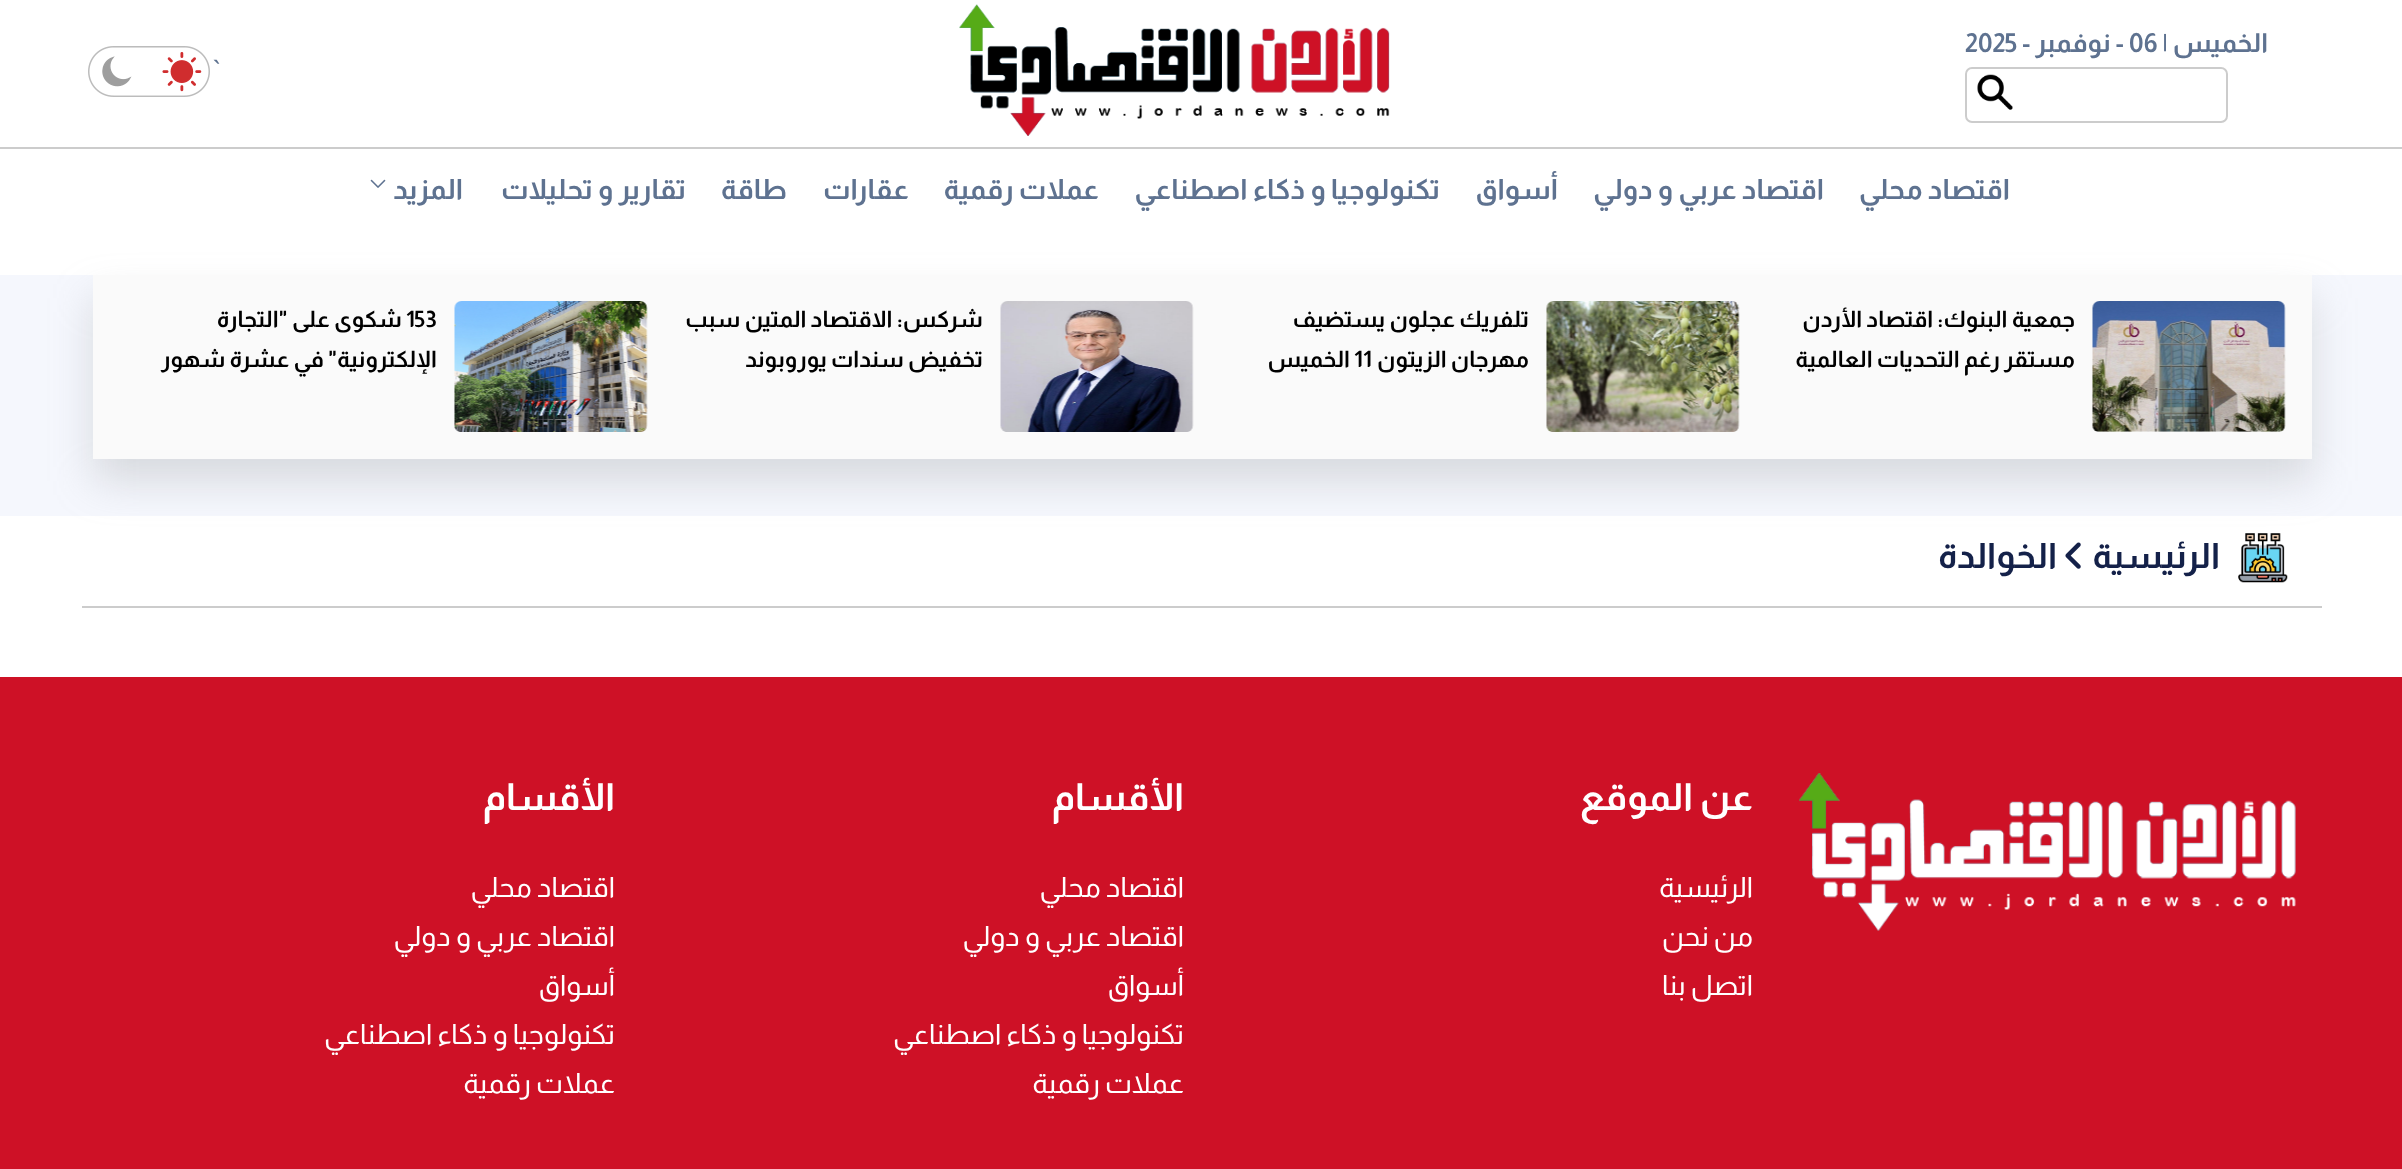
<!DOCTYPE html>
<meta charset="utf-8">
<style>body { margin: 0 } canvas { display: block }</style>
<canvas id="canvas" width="2402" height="1169"></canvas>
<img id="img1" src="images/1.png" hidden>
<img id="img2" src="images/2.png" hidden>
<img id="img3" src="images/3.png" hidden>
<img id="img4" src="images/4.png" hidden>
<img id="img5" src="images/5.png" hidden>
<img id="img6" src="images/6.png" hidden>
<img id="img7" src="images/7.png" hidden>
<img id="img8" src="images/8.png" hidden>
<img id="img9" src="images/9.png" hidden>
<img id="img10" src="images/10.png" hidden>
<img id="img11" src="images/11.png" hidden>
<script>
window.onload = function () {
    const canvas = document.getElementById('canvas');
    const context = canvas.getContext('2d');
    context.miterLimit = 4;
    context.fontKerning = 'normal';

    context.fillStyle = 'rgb(255, 255, 255)';
    context.fillRect(0, 0, 2402, 1169);
    context.fillStyle = 'rgb(204, 204, 204)';
    context.fillRect(0, 147, 2402, 2);
    context.beginPath();
    context.roundRect(1966, 68, 261, 54, 6);
    context.strokeStyle = 'rgb(204, 204, 204)';
    context.lineWidth = 2;
    context.stroke();
    context.drawImage(document.getElementById('img1'), 1977, 74, 36, 36);
    context.drawImage(document.getElementById('img2'), 959, 4, 431, 132);
    context.drawImage(document.getElementById('img3'), 88, 46, 122, 51);
    context.drawImage(document.getElementById('img4'), 370, 179, 16, 9);
    context.fillStyle = 'rgb(245, 247, 253)';
    context.fillRect(0, 275, 2402, 241);
    context.fillStyle = 'rgba(153, 157, 160, 0.32)';
    context.filter = 'blur(21px)';
    context.beginPath();
    context.rect(93, 298, 2219, 183);
    context.fill();
    context.filter = 'none';
    context.fillStyle = 'rgb(250, 250, 250)';
    context.fillRect(93, 275, 2219, 184);
    context.drawImage(document.getElementById('img5'), 2092, 301, 194, 131);
    context.drawImage(document.getElementById('img6'), 1546, 301, 194, 131);
    context.drawImage(document.getElementById('img7'), 1000, 301, 194, 131);
    context.drawImage(document.getElementById('img8'), 454, 301, 194, 131);
    context.fillStyle = 'rgb(204, 204, 204)';
    context.fillRect(82, 606, 2240, 2);
    context.drawImage(document.getElementById('img9'), 2238, 533, 50, 50);
    context.drawImage(document.getElementById('img10'), 2065, 542, 16, 27);
    context.fillStyle = 'rgb(206, 17, 38)';
    context.fillRect(0, 677, 2402, 492);
    context.drawImage(document.getElementById('img11'), 1799, 773, 497, 158);
    context.direction = 'rtl';
    context.font = 'bold 26.25px Almarai';
    context.fillStyle = 'rgb(94, 114, 144)';
    context.fillText('الخميس |', 2268, 52);
    context.direction = 'ltr';
    context.fillText('06', 2129, 52);
    context.direction = 'rtl';
    context.fillText('- نوفمبر -', 2124, 52);
    context.direction = 'ltr';
    context.fillText('2025', 1965, 52);
    context.font = '28px Almarai';
    context.fillText('`', 210, 80);
    context.direction = 'rtl';
    context.font = 'bold 28px Almarai';
    context.fillText('اقتصاد محلي', 2010, 199);
    context.fillText('اقتصاد عربي و دولي', 1824, 199);
    context.fillText('أسواق', 1558, 199);
    context.fillText('تكنولوجيا و ذكاء اصطناعي', 1440, 199);
    context.fillText('عملات رقمية', 1099, 199);
    context.fillText('عقارات', 909, 199);
    context.fillText('طاقة', 787, 199);
    context.fillText('تقارير و تحليلات', 686, 199);
    context.fillText('المزيد', 463, 199);
    context.font = 'bold 22.75px Almarai';
    context.fillStyle = 'rgb(0, 0, 0)';
    context.fillText('جمعية البنوك: اقتصاد الأردن', 2075, 327);
    context.fillText('مستقر رغم التحديات العالمية', 2075, 367);
    context.fillText('تلفريك عجلون يستضيف', 1529, 327);
    context.fillText('مهرجان الزيتون', 1529, 367);
    context.direction = 'ltr';
    context.fillText('11', 1354, 367);
    context.direction = 'rtl';
    context.fillText('الخميس', 1350, 367);
    context.fillText('شركس: الاقتصاد المتين سبب', 983, 327);
    context.fillText('تخفيض سندات يوروبوند', 983, 367);
    context.direction = 'ltr';
    context.fillText('153', 406, 327);
    context.direction = 'rtl';
    context.fillText('شكوى على "التجارة', 402, 327);
    context.fillText('الإلكترونية" في عشرة شهور', 437, 367);
    context.font = 'bold 35px Almarai';
    context.fillStyle = 'rgb(20, 33, 73)';
    context.fillText('الرئيسية', 2220, 568);
    context.fillText('الخوالدة', 2057, 568);
    context.font = 'bold 37.5px Almarai';
    context.fillStyle = 'rgb(255, 255, 255)';
    context.fillText('عن الموقع', 1753, 810);
    context.font = '28px Almarai';
    context.fillText('الرئيسية', 1753, 897);
    context.fillText('من نحن', 1753, 946);
    context.fillText('اتصل بنا', 1753, 995);
    context.font = 'bold 37.5px Almarai';
    context.fillText('الأقسام', 1184, 810);
    context.font = '28px Almarai';
    context.fillText('اقتصاد محلي', 1184, 897);
    context.fillText('اقتصاد عربي و دولي', 1184, 946);
    context.fillText('أسواق', 1184, 995);
    context.fillText('تكنولوجيا و ذكاء اصطناعي', 1184, 1044);
    context.fillText('عملات رقمية', 1184, 1093);
    context.font = 'bold 37.5px Almarai';
    context.fillText('الأقسام', 615, 810);
    context.font = '28px Almarai';
    context.fillText('اقتصاد محلي', 615, 897);
    context.fillText('اقتصاد عربي و دولي', 615, 946);
    context.fillText('أسواق', 615, 995);
    context.fillText('تكنولوجيا و ذكاء اصطناعي', 615, 1044);
    context.fillText('عملات رقمية', 615, 1093);
};
</script>
